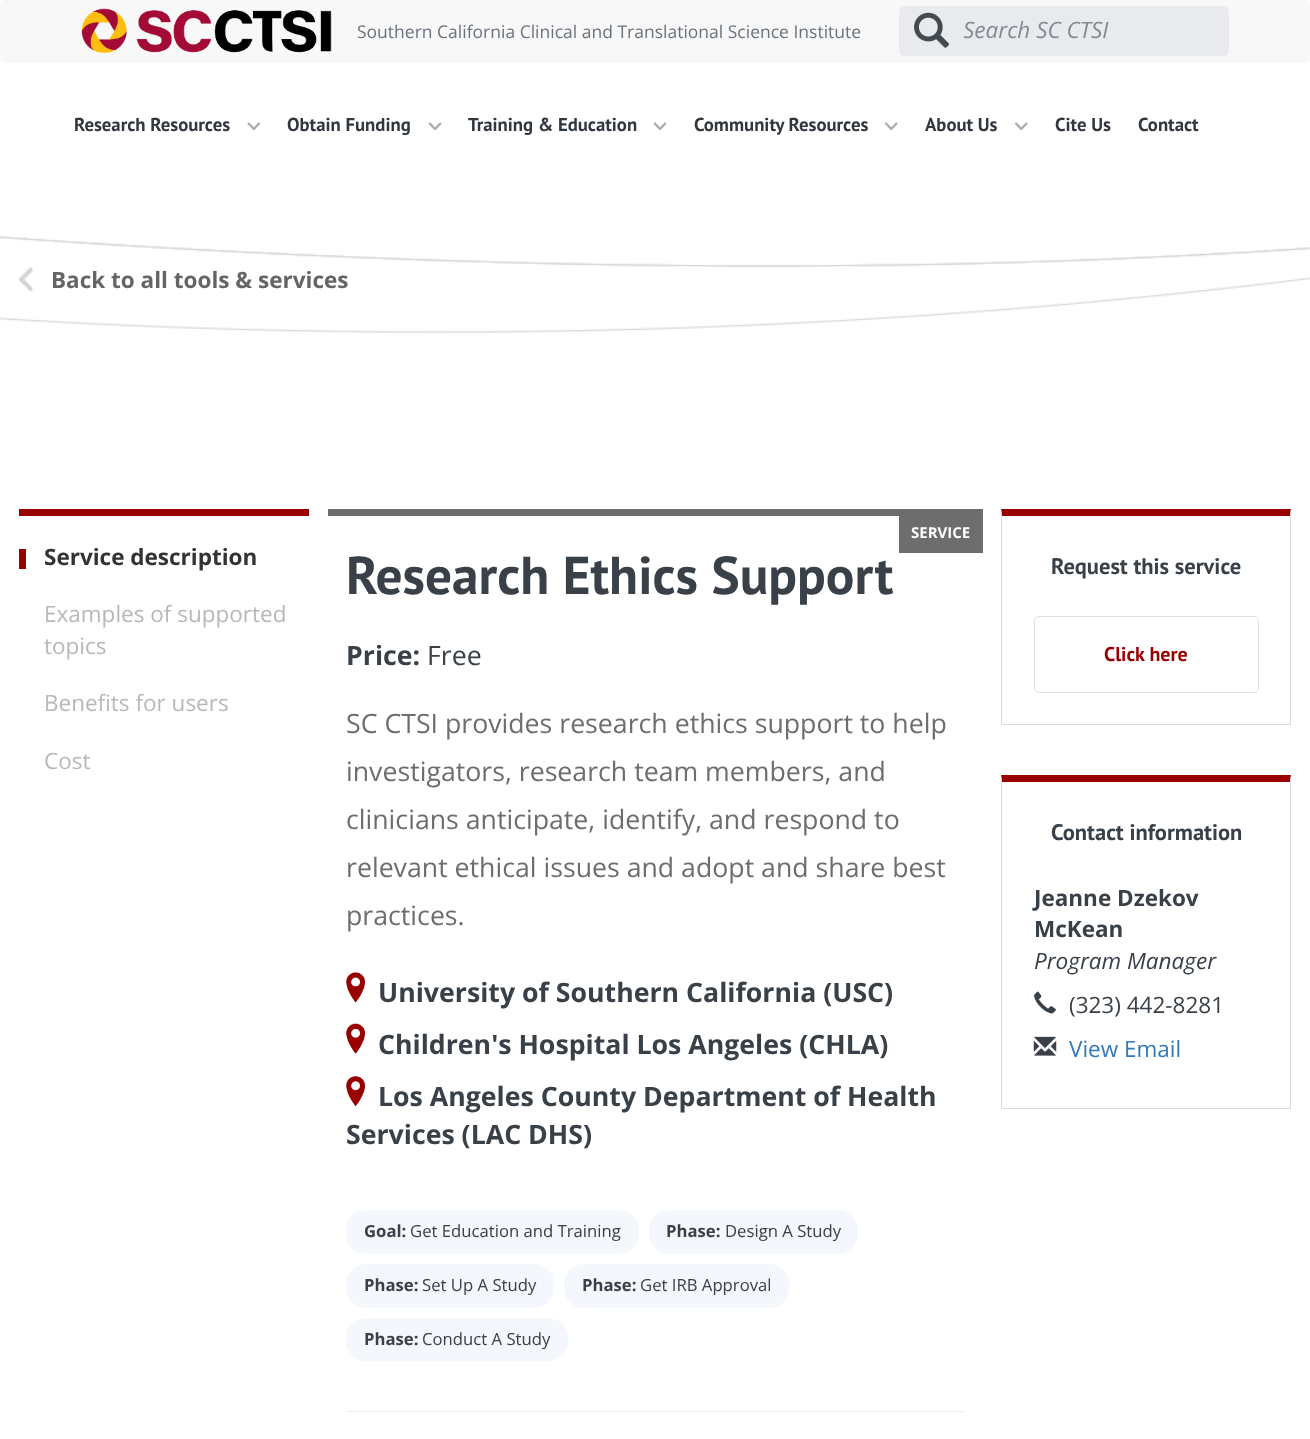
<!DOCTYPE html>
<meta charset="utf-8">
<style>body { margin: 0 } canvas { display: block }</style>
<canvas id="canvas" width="1310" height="1439"></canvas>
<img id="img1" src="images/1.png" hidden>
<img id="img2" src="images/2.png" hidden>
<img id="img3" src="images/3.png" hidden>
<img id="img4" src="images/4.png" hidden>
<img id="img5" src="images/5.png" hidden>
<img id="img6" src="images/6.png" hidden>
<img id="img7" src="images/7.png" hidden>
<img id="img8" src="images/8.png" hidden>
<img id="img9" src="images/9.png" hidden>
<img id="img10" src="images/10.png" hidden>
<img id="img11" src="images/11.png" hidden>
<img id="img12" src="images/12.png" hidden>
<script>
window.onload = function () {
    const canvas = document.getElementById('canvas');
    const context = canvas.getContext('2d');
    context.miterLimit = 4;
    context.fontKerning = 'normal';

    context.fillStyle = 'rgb(255, 255, 255)';
    context.fillRect(0, 0, 1310, 1439);
    context.fillStyle = 'rgb(248, 248, 248)';
    context.beginPath();
    context.roundRect(0, 0, 1310, 63, 5);
    context.fill();
    context.drawImage(document.getElementById('img1'), 81, 8, 251, 45);
    context.fillStyle = 'rgb(233, 234, 237)';
    context.beginPath();
    context.roundRect(899, 6, 330, 50, 6);
    context.fill();
    context.drawImage(document.getElementById('img2'), 914, 12, 35, 36);
    context.drawImage(document.getElementById('img3'), 247, 122, 13, 8);
    context.drawImage(document.getElementById('img4'), 428, 122, 14, 8);
    context.drawImage(document.getElementById('img4'), 653, 122, 14, 8);
    context.drawImage(document.getElementById('img5'), 885, 122, 13, 8);
    context.drawImage(document.getElementById('img5'), 1015, 122, 13, 8);
    context.drawImage(document.getElementById('img6'), 0, 236, 1310, 98);
    context.drawImage(document.getElementById('img7'), 18, 267, 15, 25);
    context.fillStyle = 'rgb(153, 0, 0)';
    context.fillRect(19, 509, 290, 7);
    context.fillRect(19, 549, 7, 20);
    context.fillStyle = 'rgb(109, 109, 109)';
    context.fillRect(328, 509, 655, 7);
    context.fillRect(899, 516, 84, 37);
    context.drawImage(document.getElementById('img8'), 346, 972, 19, 31);
    context.drawImage(document.getElementById('img9'), 346, 1023, 19, 31);
    context.drawImage(document.getElementById('img10'), 346, 1076, 19, 31);
    context.fillStyle = 'rgb(244, 247, 251)';
    context.beginPath();
    context.roundRect(346, 1210, 293, 44, 20);
    context.fill();
    context.beginPath();
    context.roundRect(649, 1210, 209, 44, 20);
    context.fill();
    context.beginPath();
    context.roundRect(346, 1264, 208, 44, 20);
    context.fill();
    context.beginPath();
    context.roundRect(564, 1264, 225, 44, 20);
    context.fill();
    context.beginPath();
    context.roundRect(346, 1318, 222, 43, 20);
    context.fill();
    context.fillStyle = 'rgb(238, 238, 238)';
    context.fillRect(346, 1411, 618, 1);
    context.fillStyle = 'rgb(153, 0, 0)';
    context.beginPath();
    context.moveTo(1001, 509);
    context.lineTo(1291, 509);
    context.lineTo(1290, 516);
    context.lineTo(1002, 516);
    context.closePath();
    context.fill();
    context.fillStyle = 'rgb(220, 220, 220)';
    context.beginPath();
    context.moveTo(1291, 509);
    context.lineTo(1291, 725);
    context.lineTo(1290, 724);
    context.lineTo(1290, 516);
    context.closePath();
    context.fill();
    context.fillRect(1001, 724, 290, 1);
    context.beginPath();
    context.moveTo(1001, 725);
    context.lineTo(1001, 509);
    context.lineTo(1002, 516);
    context.lineTo(1002, 724);
    context.closePath();
    context.fill();
    context.beginPath();
    context.roundRect(1034.5, 616.5, 224, 76, 4.5);
    context.strokeStyle = 'rgb(224, 224, 224)';
    context.stroke();
    context.fillStyle = 'rgb(153, 0, 0)';
    context.beginPath();
    context.moveTo(1001, 775);
    context.lineTo(1291, 775);
    context.lineTo(1290, 782);
    context.lineTo(1002, 782);
    context.closePath();
    context.fill();
    context.fillStyle = 'rgb(220, 220, 220)';
    context.beginPath();
    context.moveTo(1291, 775);
    context.lineTo(1291, 1109);
    context.lineTo(1290, 1108);
    context.lineTo(1290, 782);
    context.closePath();
    context.fill();
    context.fillRect(1001, 1108, 290, 1);
    context.beginPath();
    context.moveTo(1001, 1109);
    context.lineTo(1001, 775);
    context.lineTo(1002, 782);
    context.lineTo(1002, 1108);
    context.closePath();
    context.fill();
    context.drawImage(document.getElementById('img11'), 1034, 991, 22, 23);
    context.drawImage(document.getElementById('img12'), 1033, 1036, 24, 20);
    context.font = '17.5px Open Sans';
    context.fillStyle = 'rgb(106, 114, 124)';
    context.fillText('Southern California Clinical and Translational Science Institute', 357, 38);
    context.save();
    context.beginPath();
    context.rect(964, 14, 252, 30);
    context.clip();
    context.font = 'italic 22.5px Open Sans';
    context.fillStyle = 'rgb(130, 138, 148)';
    context.fillText('Search SC CTSI', 963, 38);
    context.restore();
    context.font = 'bold 18.75px PT Sans';
    context.fillStyle = 'rgb(49, 55, 62)';
    context.fillText('Research Resources', 74, 131);
    context.fillText('Obtain Funding', 287, 131);
    context.fillText('Training & Education', 468, 131);
    context.fillText('Community Resources', 694, 131);
    context.fillText('About Us', 925, 131);
    context.fillText('Cite Us', 1055, 131);
    context.fillText('Contact', 1138, 131);
    context.font = 'bold 22.5px Open Sans';
    context.fillStyle = 'rgb(101, 101, 101)';
    context.fillText('Back to all tools & services', 51, 288);
    context.fillStyle = 'rgb(51, 51, 51)';
    context.fillText('Service description', 44, 565);
    context.font = '22.5px Open Sans';
    context.fillStyle = 'rgb(184, 184, 184)';
    context.fillText('Examples of supported', 44, 622);
    context.fillText('topics', 44, 654);
    context.fillText('Benefits for users', 44, 711);
    context.fillText('Cost', 44, 769);
    context.font = 'bold 15px Open Sans';
    context.fillStyle = 'rgb(255, 255, 255)';
    context.fillText('SERVICE', 911, 538);
    context.font = 'bold 53.25px PT Sans';
    context.fillStyle = 'rgb(57, 64, 71)';
    context.fillText('Research Ethics Support', 346, 594);
    context.font = 'bold 26.7px Open Sans';
    context.fillText('Price:', 346, 665);
    context.font = '26.7px Open Sans';
    context.fillText('Free', 427, 665);
    context.fillStyle = 'rgb(109, 109, 109)';
    context.fillText('SC CTSI provides research ethics support to help', 346, 733);
    context.fillText('investigators, research team members, and', 346, 781);
    context.fillText('clinicians anticipate, identify, and respond to', 346, 829);
    context.fillText('relevant ethical issues and adopt and share best', 346, 877);
    context.fillText('practices.', 346, 925);
    context.font = 'bold 26.7px Open Sans';
    context.fillStyle = 'rgb(57, 64, 71)';
    context.fillText('University of Southern California (USC)', 378, 1002);
    context.fillText('Children\'s Hospital Los Angeles (CHLA)', 378, 1054);
    context.fillText('Los Angeles County Department of Health', 378, 1106);
    context.fillText('Services (LAC DHS)', 346, 1144);
    context.font = 'bold 16.7px Open Sans';
    context.fillText('Goal:', 364, 1237);
    context.font = '16.7px Open Sans';
    context.fillText('Get Education and Training', 410, 1237);
    context.font = 'bold 16.7px Open Sans';
    context.fillText('Phase:', 666, 1237);
    context.font = '16.7px Open Sans';
    context.fillText('Design A Study', 725, 1237);
    context.font = 'bold 16.7px Open Sans';
    context.fillText('Phase:', 364, 1291);
    context.font = '16.7px Open Sans';
    context.fillText('Set Up A Study', 422, 1291);
    context.font = 'bold 16.7px Open Sans';
    context.fillText('Phase:', 582, 1291);
    context.font = '16.7px Open Sans';
    context.fillText('Get IRB Approval', 640, 1291);
    context.font = 'bold 16.7px Open Sans';
    context.fillText('Phase:', 364, 1345);
    context.font = '16.7px Open Sans';
    context.fillText('Conduct A Study', 422, 1345);
    context.font = 'bold 22.5px PT Sans';
    context.fillText('Request this service', 1051, 574);
    context.font = 'bold 20px PT Sans';
    context.fillStyle = 'rgb(153, 0, 0)';
    context.fillText('Click here', 1104, 661);
    context.font = 'bold 22.5px PT Sans';
    context.fillStyle = 'rgb(57, 64, 71)';
    context.fillText('Contact information', 1051, 840);
    context.font = 'bold 22.5px Open Sans';
    context.fillText('Jeanne Dzekov', 1034, 906);
    context.fillText('McKean', 1034, 937);
    context.font = 'italic 22.5px Open Sans';
    context.fillText('Program Manager', 1034, 969);
    context.font = '22.5px Open Sans';
    context.fillText('(323) 442-8281', 1069, 1013);
    context.fillStyle = 'rgb(51, 122, 183)';
    context.fillText('View Email', 1069, 1057);
};
</script>
